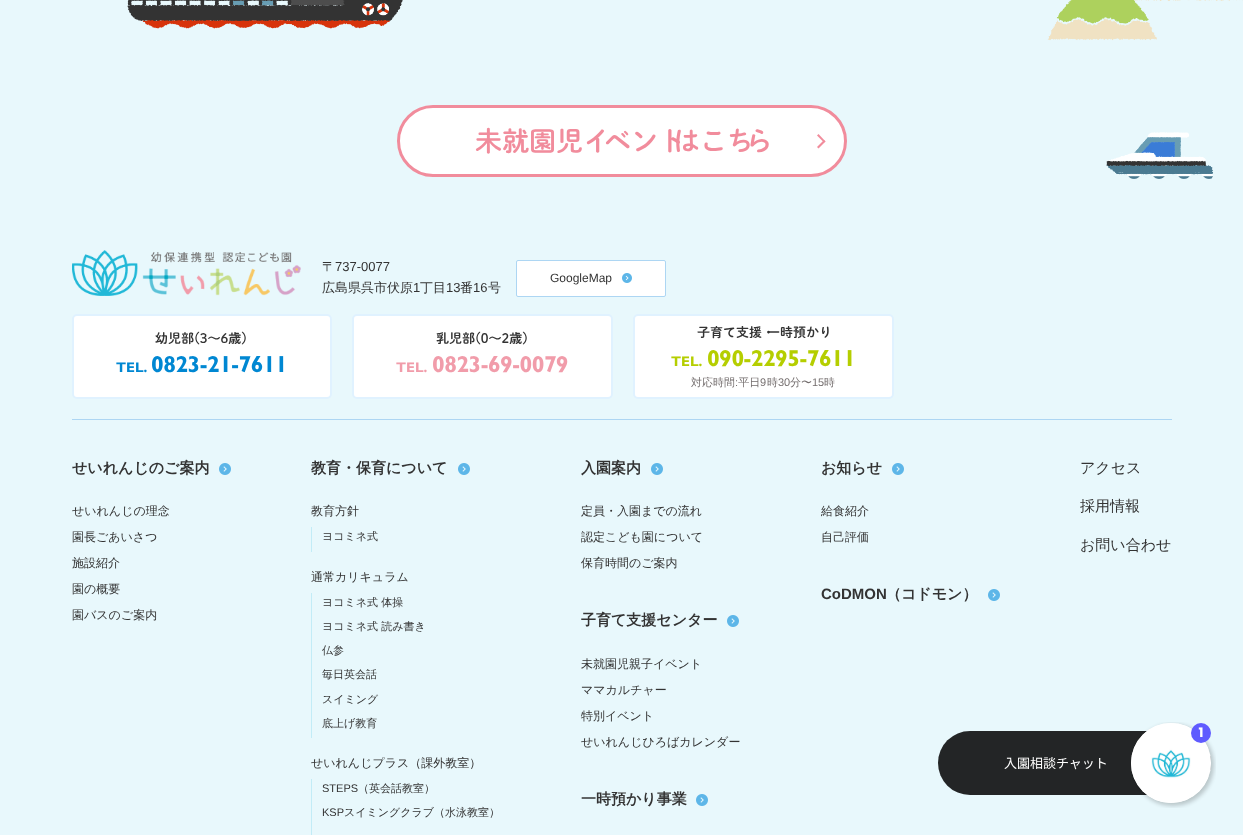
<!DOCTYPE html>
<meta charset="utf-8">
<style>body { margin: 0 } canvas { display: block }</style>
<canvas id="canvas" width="1243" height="835"></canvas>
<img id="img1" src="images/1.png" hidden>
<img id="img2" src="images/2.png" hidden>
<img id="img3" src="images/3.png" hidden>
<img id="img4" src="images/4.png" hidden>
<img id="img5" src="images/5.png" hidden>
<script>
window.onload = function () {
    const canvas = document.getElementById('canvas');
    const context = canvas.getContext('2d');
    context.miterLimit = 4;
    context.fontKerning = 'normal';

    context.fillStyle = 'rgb(232, 248, 252)';
    context.fillRect(0, 0, 1243, 835);
    context.drawImage(document.getElementById('img1'), 127, 0, 1116, 179);
    context.fillStyle = 'rgb(255, 255, 255)';
    context.beginPath();
    context.roundRect(398.5, 106.5, 447, 69, 34.5);
    context.fill();
    context.strokeStyle = 'rgb(241, 140, 156)';
    context.lineWidth = 3;
    context.stroke();
    context.fillStyle = 'rgb(241, 140, 156)';
    context.beginPath();
    context.moveTo(818.5, 134);
    context.lineTo(825.5, 141.5);
    context.lineTo(824, 142.5);
    context.lineTo(817, 135.5);
    context.closePath();
    context.fill();
    context.beginPath();
    context.moveTo(824, 140);
    context.lineTo(825.5, 141.5);
    context.lineTo(818.5, 148.5);
    context.lineTo(817, 147);
    context.closePath();
    context.fill();
    context.drawImage(document.getElementById('img2'), 72, 250, 229, 46);
    context.fillStyle = 'rgb(255, 255, 255)';
    context.beginPath();
    context.roundRect(516.5, 260.5, 149, 36, 1.5);
    context.fill();
    context.strokeStyle = 'rgb(173, 214, 243)';
    context.lineWidth = 1;
    context.stroke();
    context.drawImage(document.getElementById('img3'), 622, 273, 10, 10);
    context.fillStyle = 'rgb(173, 214, 243)';
    context.fillRect(72, 419, 1100, 1);
    context.fillStyle = 'rgb(255, 255, 255)';
    context.beginPath();
    context.roundRect(73, 315, 258, 83, 4);
    context.fill();
    context.strokeStyle = 'rgb(224, 242, 255)';
    context.lineWidth = 2;
    context.stroke();
    context.beginPath();
    context.roundRect(353, 315, 259, 83, 4);
    context.fill();
    context.stroke();
    context.beginPath();
    context.roundRect(634, 315, 259, 83, 4);
    context.fill();
    context.stroke();
    context.drawImage(document.getElementById('img4'), 219, 463, 12, 12);
    context.drawImage(document.getElementById('img4'), 458, 463, 12, 12);
    context.fillStyle = 'rgb(194, 236, 247)';
    context.fillRect(311, 527, 1, 25);
    context.fillRect(311, 593, 1, 145);
    context.fillRect(311, 779, 1, 56);
    context.drawImage(document.getElementById('img4'), 651, 463, 12, 12);
    context.drawImage(document.getElementById('img4'), 727, 615, 12, 12);
    context.drawImage(document.getElementById('img4'), 696, 794, 12, 12);
    context.drawImage(document.getElementById('img4'), 892, 463, 12, 12);
    context.drawImage(document.getElementById('img4'), 988, 589, 12, 12);
    context.drawImage(document.getElementById('img5'), 938, 722, 278, 86);
    context.font = '600 27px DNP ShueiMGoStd';
    context.fillStyle = 'rgb(241, 140, 156)';
    context.fillText('未就園児イ', 475, 151);
    context.fillText('ベント', 604, 151);
    context.fillText('はこち', 673, 151);
    context.fillText('ら', 746, 151);
    context.font = '500 13px WenQuanYi Zen Hei';
    context.fillStyle = 'rgb(51, 51, 51)';
    context.fillText('〒', 322, 271);
    context.font = '13px Liberation Sans';
    context.fillText('737-0077', 335, 271);
    context.font = '500 13px WenQuanYi Zen Hei';
    context.fillText('広島県呉市伏原', 322, 292);
    context.font = '13px Liberation Sans';
    context.fillText('1', 413, 292);
    context.font = '500 13px WenQuanYi Zen Hei';
    context.fillText('丁目', 420, 292);
    context.font = '13px Liberation Sans';
    context.fillText('13', 446, 292);
    context.font = '500 13px WenQuanYi Zen Hei';
    context.fillText('番', 460, 292);
    context.font = '13px Liberation Sans';
    context.fillText('16', 473, 292);
    context.font = '500 13px WenQuanYi Zen Hei';
    context.fillText('号', 488, 292);
    context.font = '12px Liberation Sans';
    context.fillText('GoogleMap', 550, 282);
    context.font = '600 13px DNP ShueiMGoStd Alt';
    context.fillText('幼児部(3〜6歳)', 155, 343);
    context.font = 'bold 14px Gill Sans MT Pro';
    context.fillStyle = 'rgb(0, 135, 210)';
    context.fillText('TEL.', 116, 372);
    context.letterSpacing = '-0.5px';
    context.font = 'bold 23px Gill Sans MT Pro';
    context.fillText('0823-21-7611', 151, 372);
    context.letterSpacing = '0px';
    context.font = '600 13px DNP ShueiMGoStd Alt';
    context.fillStyle = 'rgb(51, 51, 51)';
    context.fillText('乳児部(0〜2歳)', 436, 343);
    context.font = 'bold 14px Gill Sans MT Pro';
    context.fillStyle = 'rgb(241, 156, 170)';
    context.fillText('TEL.', 396, 372);
    context.letterSpacing = '-0.5px';
    context.font = 'bold 23px Gill Sans MT Pro';
    context.fillText('0823-69-0079', 432, 372);
    context.letterSpacing = '0px';
    context.font = '600 13px DNP ShueiMGoStd';
    context.fillStyle = 'rgb(51, 51, 51)';
    context.fillText('子育て支援・', 697, 337);
    context.fillText('一時預かり', 767, 337);
    context.font = 'bold 14px Gill Sans MT Pro';
    context.fillStyle = 'rgb(181, 206, 0)';
    context.fillText('TEL.', 671, 366);
    context.letterSpacing = '-0.5px';
    context.font = 'bold 23px Gill Sans MT Pro';
    context.fillText('090-2295-7611', 707, 366);
    context.letterSpacing = '0px';
    context.font = '500 11px WenQuanYi Zen Hei';
    context.fillStyle = 'rgb(116, 110, 110)';
    context.fillText('対応時間 平日', 691, 386);
    context.font = '11px Liberation Sans';
    context.fillText('9', 760, 386);
    context.font = '500 11px WenQuanYi Zen Hei';
    context.fillText('時', 767, 386);
    context.font = '11px Liberation Sans';
    context.fillText('30', 778, 386);
    context.font = '500 11px WenQuanYi Zen Hei';
    context.fillText('分〜', 790, 386);
    context.font = '11px Liberation Sans';
    context.fillText('15', 812, 386);
    context.font = '500 11px WenQuanYi Zen Hei';
    context.fillText('時', 824, 386);
    context.font = '11px Liberation Sans';
    context.fillText(':', 735, 386);
    context.font = 'bold 15px WenQuanYi Zen Hei';
    context.fillStyle = 'rgb(51, 51, 51)';
    context.fillText('せいれんじのご案内', 72, 473);
    context.font = '500 12px WenQuanYi Zen Hei';
    context.fillText('せいれんじの理念', 72, 515);
    context.fillText('園長ごあいさつ', 72, 541);
    context.fillText('施設紹介', 72, 567);
    context.fillText('園の概要', 72, 593);
    context.fillText('園バスのご案内', 72, 619);
    context.font = 'bold 15px WenQuanYi Zen Hei';
    context.fillText('教育・保育について', 311, 473);
    context.font = '500 12px WenQuanYi Zen Hei';
    context.fillText('教育方針', 311, 515);
    context.font = '500 11px WenQuanYi Zen Hei';
    context.fillText('ヨコミネ式', 322, 540);
    context.font = '500 12px WenQuanYi Zen Hei';
    context.fillText('通常カリキュラム', 311, 581);
    context.font = '500 11px WenQuanYi Zen Hei';
    context.fillText('ヨコミネ式 体操', 322, 606);
    context.fillText('ヨコミネ式 読み書き', 322, 630);
    context.fillText('仏参', 322, 654);
    context.fillText('毎日英会話', 322, 678);
    context.fillText('スイミング', 322, 703);
    context.fillText('底上げ教育', 322, 727);
    context.font = '500 12px WenQuanYi Zen Hei';
    context.fillText('せいれんじプラス（課外教室）', 311, 767);
    context.font = '11px Liberation Sans';
    context.fillText('STEPS', 322, 792);
    context.font = '500 11px WenQuanYi Zen Hei';
    context.fillText('（英会話教室）', 358, 792);
    context.font = '11px Liberation Sans';
    context.fillText('KSP', 322, 816);
    context.font = '500 11px WenQuanYi Zen Hei';
    context.fillText('スイミングクラブ（水泳教室）', 344, 816);
    context.font = 'bold 15px WenQuanYi Zen Hei';
    context.fillText('入園案内', 581, 473);
    context.font = '500 12px WenQuanYi Zen Hei';
    context.fillText('定員・入園までの流れ', 581, 515);
    context.fillText('認定こども園について', 581, 541);
    context.fillText('保育時間のご案内', 581, 567);
    context.font = 'bold 15px WenQuanYi Zen Hei';
    context.fillText('子育て支援センター', 581, 625);
    context.font = '500 12px WenQuanYi Zen Hei';
    context.fillText('未就園児親子イベント', 581, 668);
    context.fillText('ママカルチャー', 581, 694);
    context.fillText('特別イベント', 581, 720);
    context.fillText('せいれんじひろばカレンダー', 581, 746);
    context.font = 'bold 15px WenQuanYi Zen Hei';
    context.fillText('一時預かり事業', 581, 804);
    context.fillText('お知らせ', 821, 473);
    context.font = '500 12px WenQuanYi Zen Hei';
    context.fillText('給食紹介', 821, 515);
    context.fillText('自己評価', 821, 541);
    context.font = 'bold 15px Liberation Sans';
    context.fillText('CoDMON', 821, 599);
    context.font = 'bold 15px WenQuanYi Zen Hei';
    context.fillText('（コドモン）', 886, 599);
    context.font = '500 15px WenQuanYi Zen Hei';
    context.fillText('アクセス', 1080, 473);
    context.fillText('採用情報', 1080, 511);
    context.fillText('お問い合わせ', 1080, 550);
};
</script>
